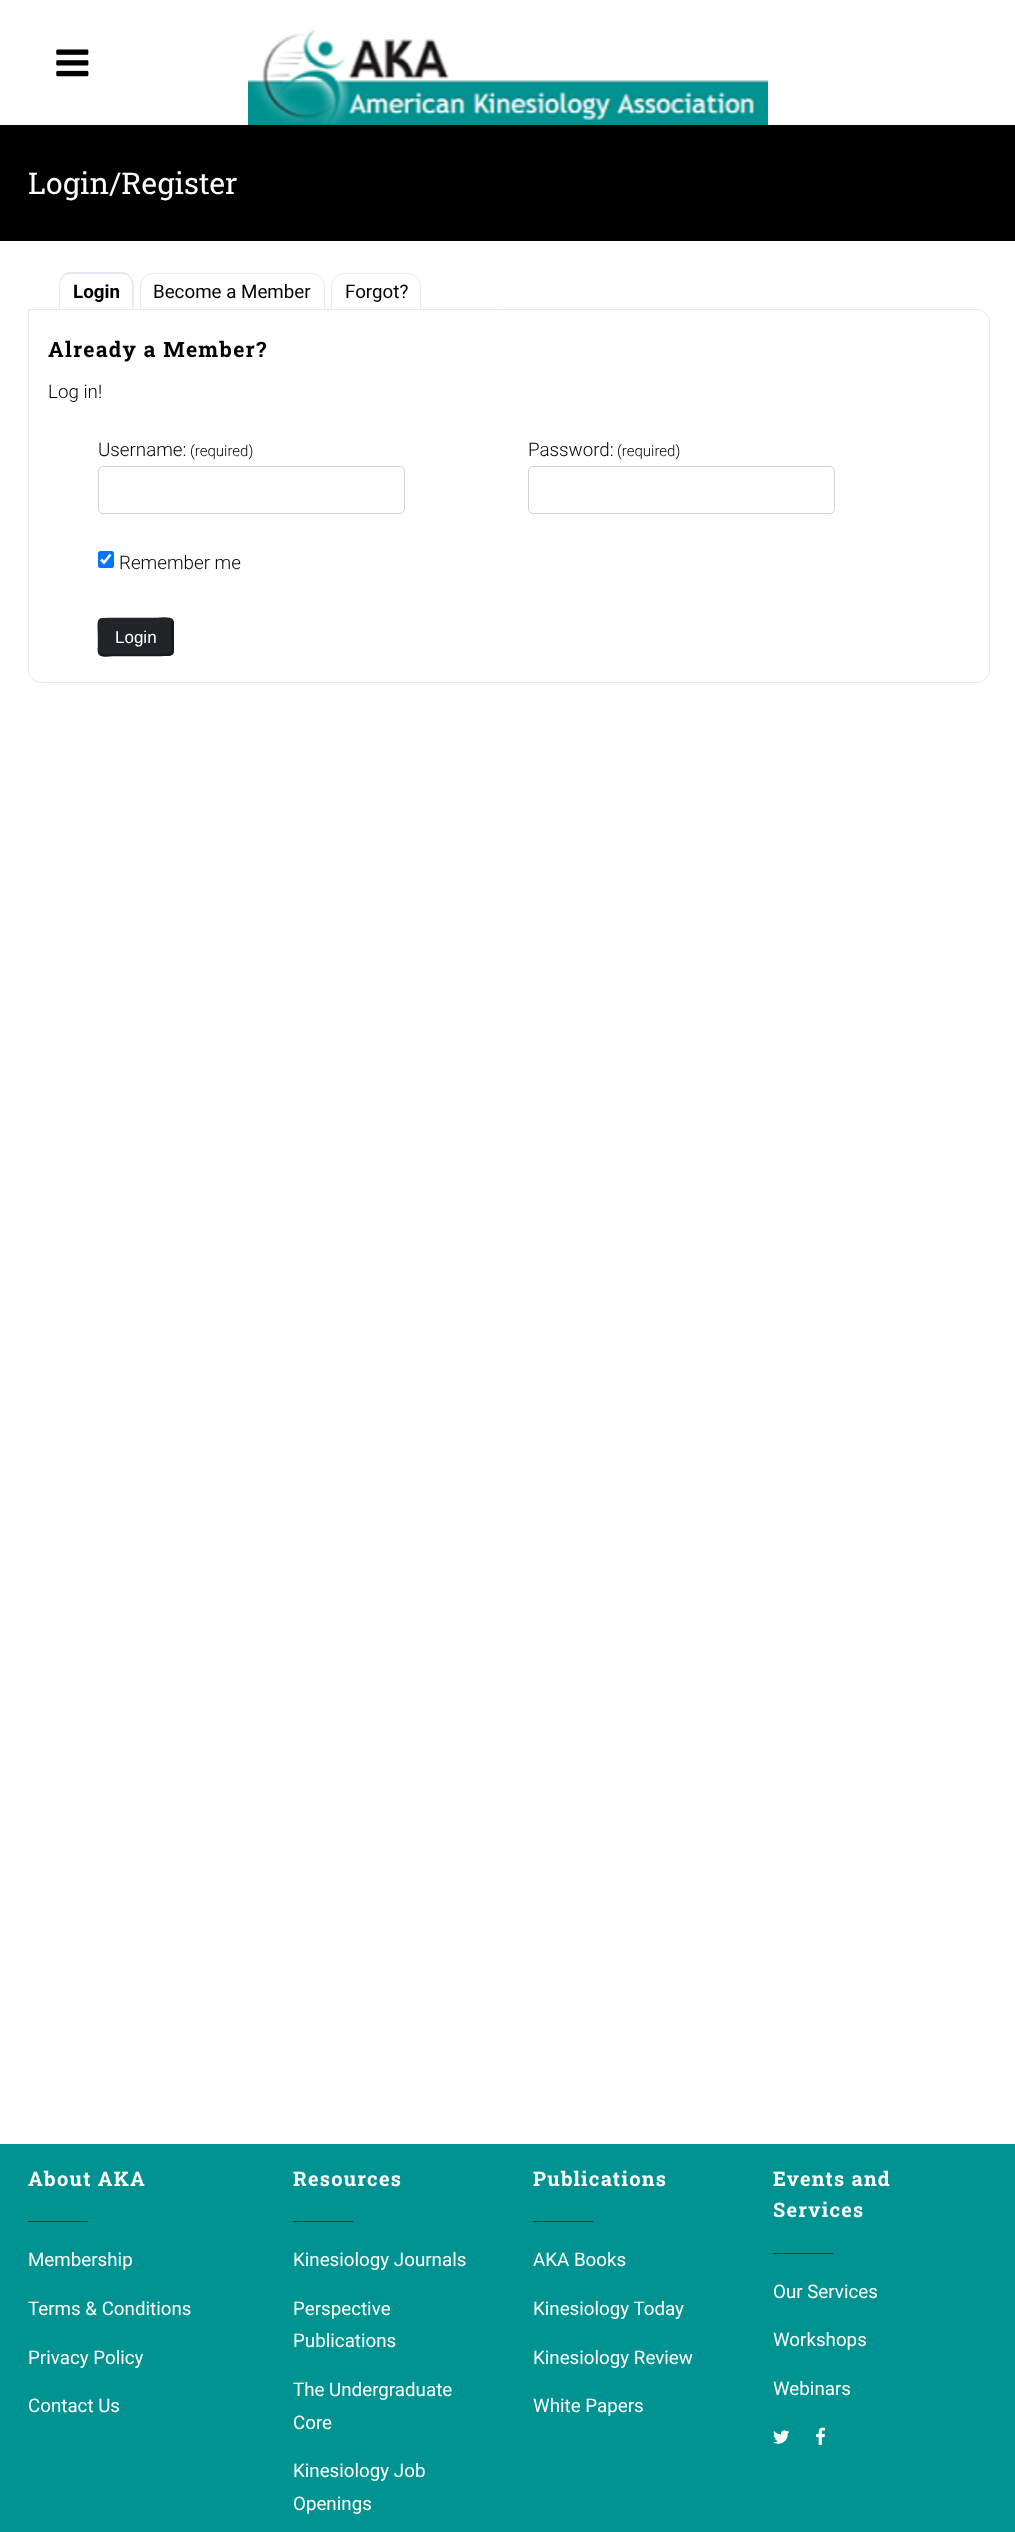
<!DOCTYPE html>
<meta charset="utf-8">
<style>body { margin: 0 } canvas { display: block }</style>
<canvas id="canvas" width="1015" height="2532"></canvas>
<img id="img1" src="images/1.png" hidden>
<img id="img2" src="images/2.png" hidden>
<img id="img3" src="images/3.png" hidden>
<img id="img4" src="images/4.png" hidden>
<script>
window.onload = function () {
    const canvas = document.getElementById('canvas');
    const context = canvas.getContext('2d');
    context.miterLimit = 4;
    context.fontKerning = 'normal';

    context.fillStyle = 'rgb(255, 255, 255)';
    context.fillRect(0, 0, 1015, 2532);
    context.drawImage(document.getElementById('img1'), 56, 49, 33, 28);
    context.drawImage(document.getElementById('img2'), 248, 30, 520, 95);
    context.fillStyle = 'rgb(0, 0, 0)';
    context.fillRect(0, 125, 1015, 116);
    context.fillStyle = 'rgb(231, 233, 246)';
    context.beginPath();
    context.moveTo(71, 274);
    context.bezierCurveTo(68, 274, 65, 275, 63, 277);
    context.lineTo(62, 276);
    context.bezierCurveTo(64, 274, 65, 273, 68, 272);
    context.lineTo(124, 272);
    context.bezierCurveTo(127, 273, 129, 274, 130, 276);
    context.lineTo(129, 277);
    context.bezierCurveTo(127, 275, 124, 274, 121, 274);
    context.closePath();
    context.fill();
    context.beginPath();
    context.moveTo(134, 282.5);
    context.lineTo(134, 310);
    context.lineTo(132, 308);
    context.lineTo(132, 285);
    context.bezierCurveTo(132, 282, 131, 279.5, 129, 277.5);
    context.lineTo(130, 276);
    context.bezierCurveTo(132, 278, 133, 280, 134, 282.5);
    context.closePath();
    context.fill();
    context.fillStyle = 'rgb(255, 255, 255)';
    context.beginPath();
    context.moveTo(134, 310);
    context.lineTo(132, 308);
    context.lineTo(132, 309);
    context.lineTo(60, 309);
    context.lineTo(59, 310);
    context.closePath();
    context.fill();
    context.fillStyle = 'rgb(231, 233, 246)';
    context.beginPath();
    context.moveTo(59, 310);
    context.lineTo(59, 285);
    context.bezierCurveTo(59, 281.5, 60, 278.5, 62.5, 276);
    context.lineTo(63.5, 277);
    context.bezierCurveTo(61.5, 279, 60, 282, 60, 285);
    context.lineTo(60, 309);
    context.closePath();
    context.fill();
    context.beginPath();
    context.roundRect(140.5, 273.5, 184, 36, [12.5, 12.5, 0, 0]);
    context.strokeStyle = 'rgb(231, 233, 246)';
    context.stroke();
    context.beginPath();
    context.roundRect(331.5, 273.5, 89, 36, [12.5, 12.5, 0, 0]);
    context.stroke();
    context.fillStyle = 'rgb(255, 255, 255)';
    context.beginPath();
    context.roundRect(28.5, 309.5, 961, 373, [0, 12.5, 12.5, 12.5]);
    context.fill();
    context.stroke();
    context.beginPath();
    context.roundRect(98.5, 466.5, 306, 47, 4.5);
    context.strokeStyle = 'rgb(206, 212, 218)';
    context.stroke();
    context.beginPath();
    context.roundRect(528.5, 466.5, 306, 47, 4.5);
    context.stroke();
    context.fillStyle = 'rgb(0, 117, 255)';
    context.beginPath();
    context.roundRect(98, 551, 16, 17, 2.5);
    context.fill();
    context.beginPath();
    context.moveTo(101, 559.5);
    context.lineTo(104, 562.5);
    context.lineTo(110.5, 554.5);
    context.strokeStyle = 'rgb(255, 255, 255)';
    context.lineWidth = 2.6;
    context.stroke();
    context.fillStyle = 'rgb(33, 37, 41)';
    context.beginPath();
    context.roundRect(98, 618, 76, 38, 5);
    context.fill();
    context.beginPath();
    context.moveTo(171.5, 620);
    context.bezierCurveTo(173, 621.5, 172.5, 625, 172.5, 627.5);
    context.lineTo(172.5, 637);
    context.bezierCurveTo(172.5, 656, 176.5, 655, 157.5, 655);
    context.lineTo(113.5, 655);
    context.bezierCurveTo(112.5, 655, 102.5, 656.5, 100, 654);
    context.strokeStyle = 'rgb(22, 25, 27)';
    context.lineWidth = 2.5;
    context.stroke();
    context.beginPath();
    context.moveTo(100, 654);
    context.bezierCurveTo(98, 652, 99, 648.5, 99, 646.5);
    context.lineTo(99, 637);
    context.bezierCurveTo(99, 617.5, 95, 619, 113.5, 619);
    context.lineTo(157.5, 619);
    context.bezierCurveTo(159, 619, 168.5, 617, 171.5, 620);
    context.strokeStyle = 'rgb(33, 37, 41)';
    context.stroke();
    context.fillStyle = 'rgb(1, 147, 146)';
    context.fillRect(0, 2144, 1015, 388);
    context.fillStyle = 'rgb(54, 54, 54)';
    context.fillRect(28, 2221, 60, 1);
    context.fillRect(293, 2221, 60, 1);
    context.fillRect(533, 2221, 60, 1);
    context.fillRect(773, 2253, 60, 1);
    context.drawImage(document.getElementById('img3'), 773, 2430, 17, 14);
    context.drawImage(document.getElementById('img4'), 816, 2427, 10, 19);
    context.font = '30px Roboto Slab';
    context.fillStyle = 'rgb(255, 255, 255)';
    context.fillText('Login/Register', 28, 194);
    context.font = 'bold 18.75px Roboto';
    context.fillStyle = 'rgb(0, 0, 0)';
    context.fillText('Login', 73, 298);
    context.font = '18.75px Roboto';
    context.fillText('Become a Member', 153, 298);
    context.fillText('Forgot?', 345, 298);
    context.letterSpacing = '1.25px';
    context.font = 'bold 21.25px Roboto Slab';
    context.fillText('Already a Member?', 48, 357);
    context.letterSpacing = '0px';
    context.font = '300 18.75px Roboto';
    context.fillText('Log in!', 48, 398);
    context.fillText('Username:', 98, 456);
    context.font = '300 15px Roboto';
    context.fillText('(required)', 190, 456);
    context.font = '300 18.75px Roboto';
    context.fillText('Password:', 528, 456);
    context.font = '300 15px Roboto';
    context.fillText('(required)', 617, 456);
    context.font = '300 18.75px Roboto';
    context.fillText('Remember me', 119, 569);
    context.font = '17px Liberation Sans';
    context.fillStyle = 'rgb(255, 255, 255)';
    context.fillText('Login', 115, 643);
    context.letterSpacing = '1.25px';
    context.font = 'bold 20px Roboto Slab';
    context.fillText('About AKA', 28, 2186);
    context.letterSpacing = '0px';
    context.font = '18.75px Roboto';
    context.fillText('Membership', 28, 2266);
    context.fillText('Terms & Conditions', 28, 2315);
    context.fillText('Privacy Policy', 28, 2364);
    context.fillText('Contact Us', 28, 2412);
    context.letterSpacing = '1.25px';
    context.font = 'bold 20px Roboto Slab';
    context.fillText('Resources', 293, 2186);
    context.letterSpacing = '0px';
    context.font = '18.75px Roboto';
    context.fillText('Kinesiology Journals', 293, 2266);
    context.fillText('Perspective', 293, 2315);
    context.fillText('Publications', 293, 2347);
    context.fillText('The Undergraduate', 293, 2396);
    context.fillText('Core', 293, 2429);
    context.fillText('Kinesiology Job', 293, 2477);
    context.fillText('Openings', 293, 2510);
    context.letterSpacing = '1.25px';
    context.font = 'bold 20px Roboto Slab';
    context.fillText('Publications', 533, 2186);
    context.letterSpacing = '0px';
    context.font = '18.75px Roboto';
    context.fillText('AKA Books', 533, 2266);
    context.fillText('Kinesiology Today', 533, 2315);
    context.fillText('Kinesiology Review', 533, 2364);
    context.fillText('White Papers', 533, 2412);
    context.letterSpacing = '1.25px';
    context.font = 'bold 20px Roboto Slab';
    context.fillText('Events and', 773, 2186);
    context.fillText('Services', 773, 2217);
    context.letterSpacing = '0px';
    context.font = '18.75px Roboto';
    context.fillText('Our Services', 773, 2298);
    context.fillText('Workshops', 773, 2346);
    context.fillText('Webinars', 773, 2395);
};
</script>
